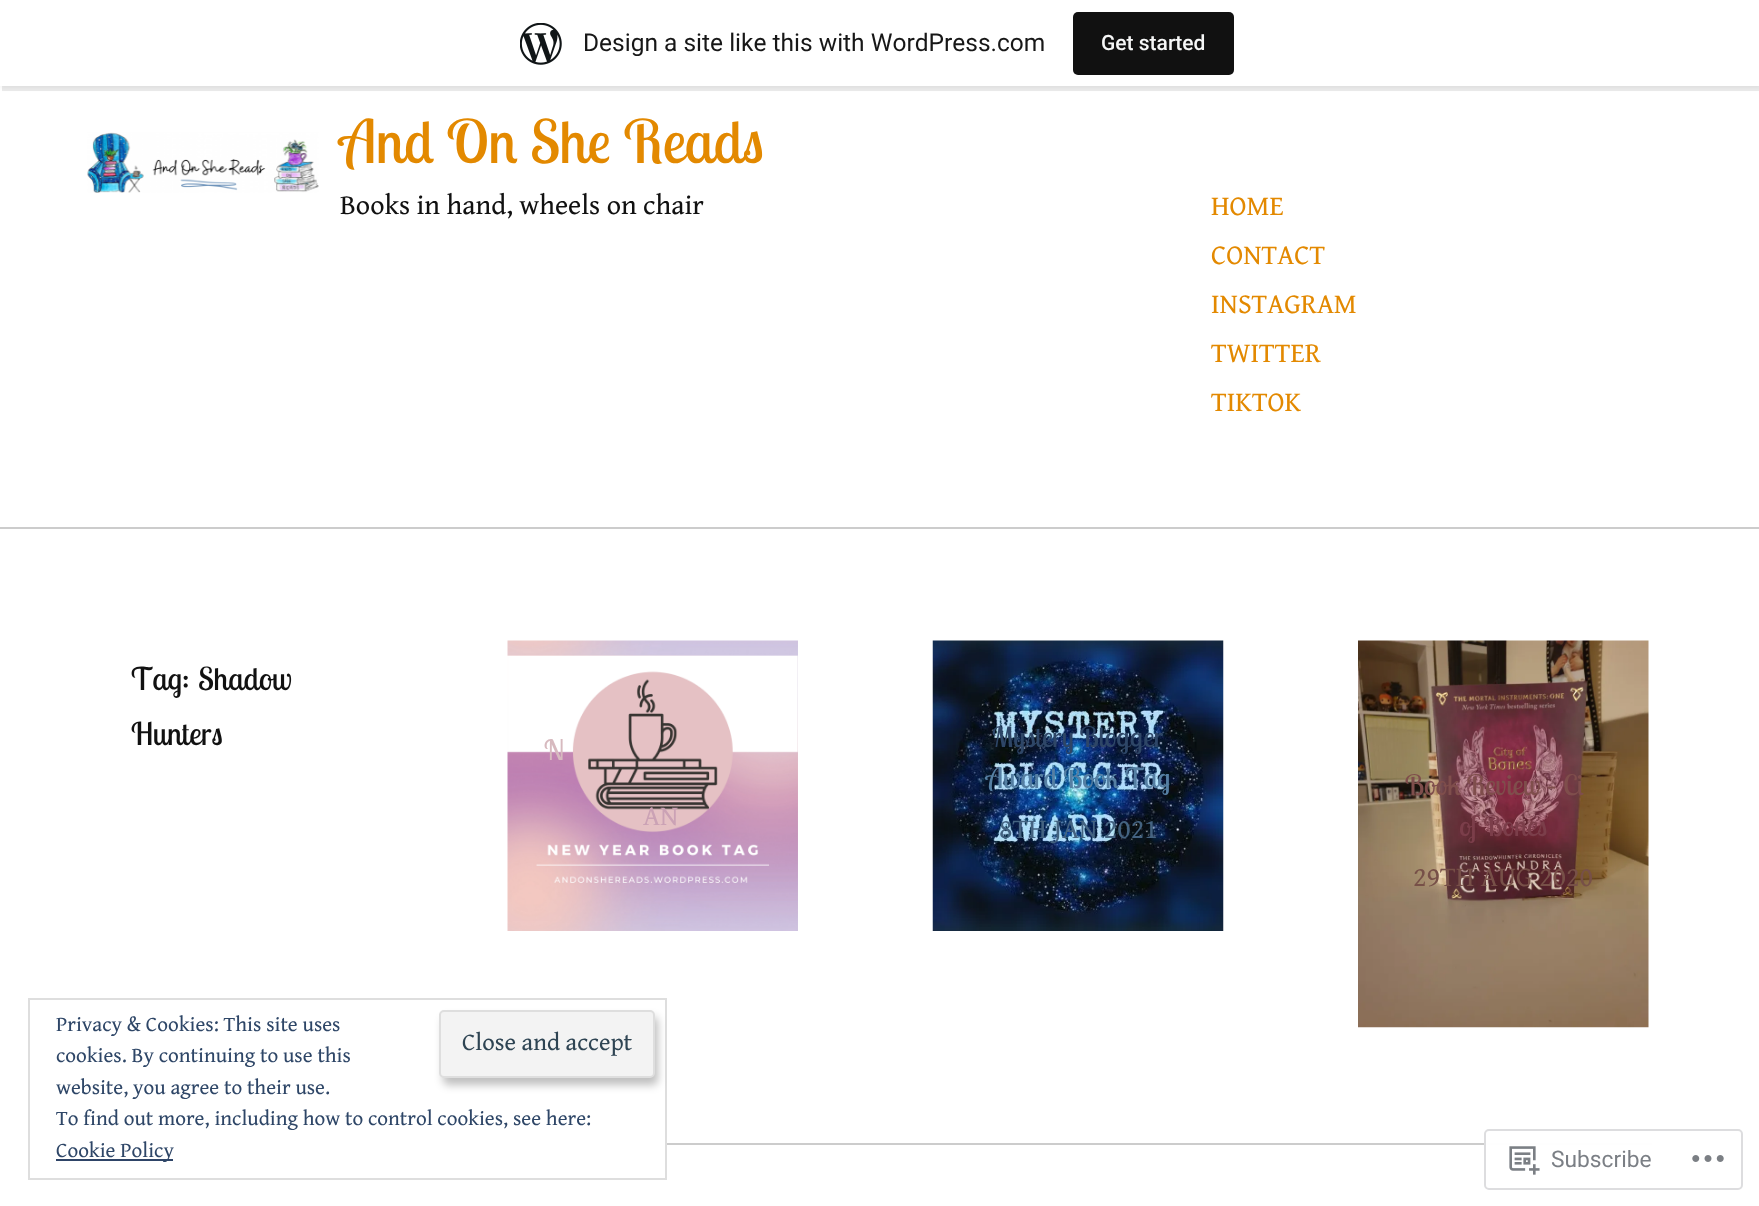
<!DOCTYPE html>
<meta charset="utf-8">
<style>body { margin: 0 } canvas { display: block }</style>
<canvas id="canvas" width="1759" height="1206"></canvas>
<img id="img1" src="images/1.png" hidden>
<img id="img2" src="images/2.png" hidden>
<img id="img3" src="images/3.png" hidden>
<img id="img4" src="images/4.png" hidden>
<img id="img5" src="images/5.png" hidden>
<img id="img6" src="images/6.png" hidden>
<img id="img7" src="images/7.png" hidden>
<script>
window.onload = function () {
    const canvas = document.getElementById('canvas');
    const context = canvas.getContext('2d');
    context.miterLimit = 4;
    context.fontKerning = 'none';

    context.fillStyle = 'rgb(255, 255, 255)';
    context.fillRect(0, 0, 1759, 1206);
    context.fillStyle = 'rgba(0, 0, 0, 0.05)';
    context.filter = 'blur(2px)';
    context.beginPath();
    context.rect(0, 2, 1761, 86);
    context.fill();
    context.filter = 'none';
    context.fillStyle = 'rgba(0, 0, 0, 0.08)';
    context.beginPath();
    context.moveTo(2, 86);
    context.lineTo(2, 91);
    context.lineTo(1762, 91);
    context.lineTo(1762, 5);
    context.lineTo(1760, 5);
    context.lineTo(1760, 86);
    context.closePath();
    context.fill();
    context.fillStyle = 'rgb(255, 255, 255)';
    context.fillRect(0, 0, 1759, 86);
    context.drawImage(document.getElementById('img1'), 520, 23, 42, 42);
    context.fillStyle = 'rgb(17, 17, 17)';
    context.beginPath();
    context.roundRect(1073, 12, 161, 63, 5);
    context.fill();
    context.drawImage(document.getElementById('img2'), 87, 132, 232, 61);
    context.fillStyle = 'rgb(204, 204, 204)';
    context.fillRect(0, 527, 1759, 2);
    context.drawImage(document.getElementById('img3'), 507, 640, 291, 291);
    context.drawImage(document.getElementById('img4'), 932, 640, 292, 291);
    context.drawImage(document.getElementById('img5'), 1358, 640, 291, 388);
    context.fillRect(667, 1143, 985, 2);
    context.strokeStyle = 'rgb(222, 222, 222)';
    context.lineWidth = 2;
    context.strokeRect(29, 999, 637, 180);
    context.fillStyle = 'rgba(0, 0, 0, 0.25)';
    context.filter = 'blur(4.5px)';
    context.beginPath();
    context.roundRect(443, 1017, 215, 68, 5);
    context.fill();
    context.filter = 'none';
    context.fillStyle = 'rgb(243, 243, 243)';
    context.beginPath();
    context.roundRect(440, 1011, 214, 66, 4);
    context.fill();
    context.stroke();
    context.fillStyle = 'rgb(46, 68, 103)';
    context.fillRect(56, 1159, 117, 2);
    context.fillStyle = 'rgba(255, 255, 255, 0.98)';
    context.beginPath();
    context.roundRect(1485, 1130, 257, 59, 4);
    context.fill();
    context.strokeStyle = 'rgb(221, 221, 223)';
    context.stroke();
    context.drawImage(document.getElementById('img6'), 1509, 1146, 31, 29);
    context.drawImage(document.getElementById('img7'), 1692, 1155, 32, 7);
    context.font = '24.5px Roboto';
    context.fillStyle = 'rgb(23, 23, 23)';
    context.fillText('Design a site like this with WordPress.com', 583, 51);
    context.font = '500 21px Roboto';
    context.fillStyle = 'rgb(246, 247, 247)';
    context.fillText('Get started', 1101, 50);
    context.font = '59.75px Lobster Two';
    context.fillStyle = 'rgb(227, 137, 0)';
    context.fillText('And On She Reads', 340, 163);
    context.font = '28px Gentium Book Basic';
    context.fillStyle = 'rgb(17, 17, 17)';
    context.fillText('Books in hand, wheels on chair', 340, 214);
    context.fillStyle = 'rgb(227, 137, 0)';
    context.fillText('HOME', 1211, 215);
    context.fillText('CONTACT', 1211, 264);
    context.fillText('INSTAGRAM', 1211, 313);
    context.fillText('TWITTER', 1211, 362);
    context.fillText('TIKTOK', 1211, 411);
    context.font = '31.5px Lobster Two';
    context.fillStyle = 'rgb(17, 17, 17)';
    context.fillText('Tag:', 131, 690);
    context.fillText('Shadow', 198, 690);
    context.fillText('Hunters', 131, 745);
    context.font = '28px Lobster Two';
    context.fillStyle = 'rgb(215, 186, 191)';
    context.fillText('N', 544, 760);
    context.font = '28px Gentium Book Basic';
    context.fillStyle = 'rgb(203, 162, 181)';
    context.fillText('AN', 643, 825);
    context.font = '28px Lobster Two';
    context.fillStyle = 'rgb(46, 70, 103)';
    context.fillText('Mystery Blogger', 992, 747);
    context.fillStyle = 'rgb(85, 127, 163)';
    context.fillText('Award Book Tag', 986, 788);
    context.font = '28px Gentium Book Basic';
    context.fillStyle = 'rgb(68, 99, 129)';
    context.fillText('8TH JAN 2021', 999, 838);
    context.font = '28px Lobster Two';
    context.fillStyle = 'rgb(127, 78, 76)';
    context.fillText('Book Review – Ci', 1405, 795);
    context.fillStyle = 'rgb(123, 62, 74)';
    context.fillText('of Bones', 1459, 836);
    context.font = '28px Gentium Book Basic';
    context.fillStyle = 'rgb(119, 80, 72)';
    context.fillText('29TH AUG 2020', 1413, 886);
    context.font = '21px Gentium Book Basic';
    context.fillStyle = 'rgb(46, 70, 103)';
    context.fillText('Privacy & Cookies: This site uses', 56, 1031);
    context.fillText('cookies. By continuing to use this', 56, 1062);
    context.font = '24.5px Gentium Book Basic';
    context.fillStyle = 'rgb(46, 68, 83)';
    context.fillText('Close and accept', 462, 1050);
    context.font = '21px Gentium Book Basic';
    context.fillStyle = 'rgb(46, 70, 103)';
    context.fillText('website, you agree to their use.', 56, 1094);
    context.fillText('To find out more, including how to control cookies, see here:', 56, 1125);
    context.fillText('Cookie Policy', 56, 1157);
    context.font = '22.75px Roboto';
    context.fillStyle = 'rgb(123, 127, 133)';
    context.fillText('Subscribe', 1551, 1167);
};
</script>
